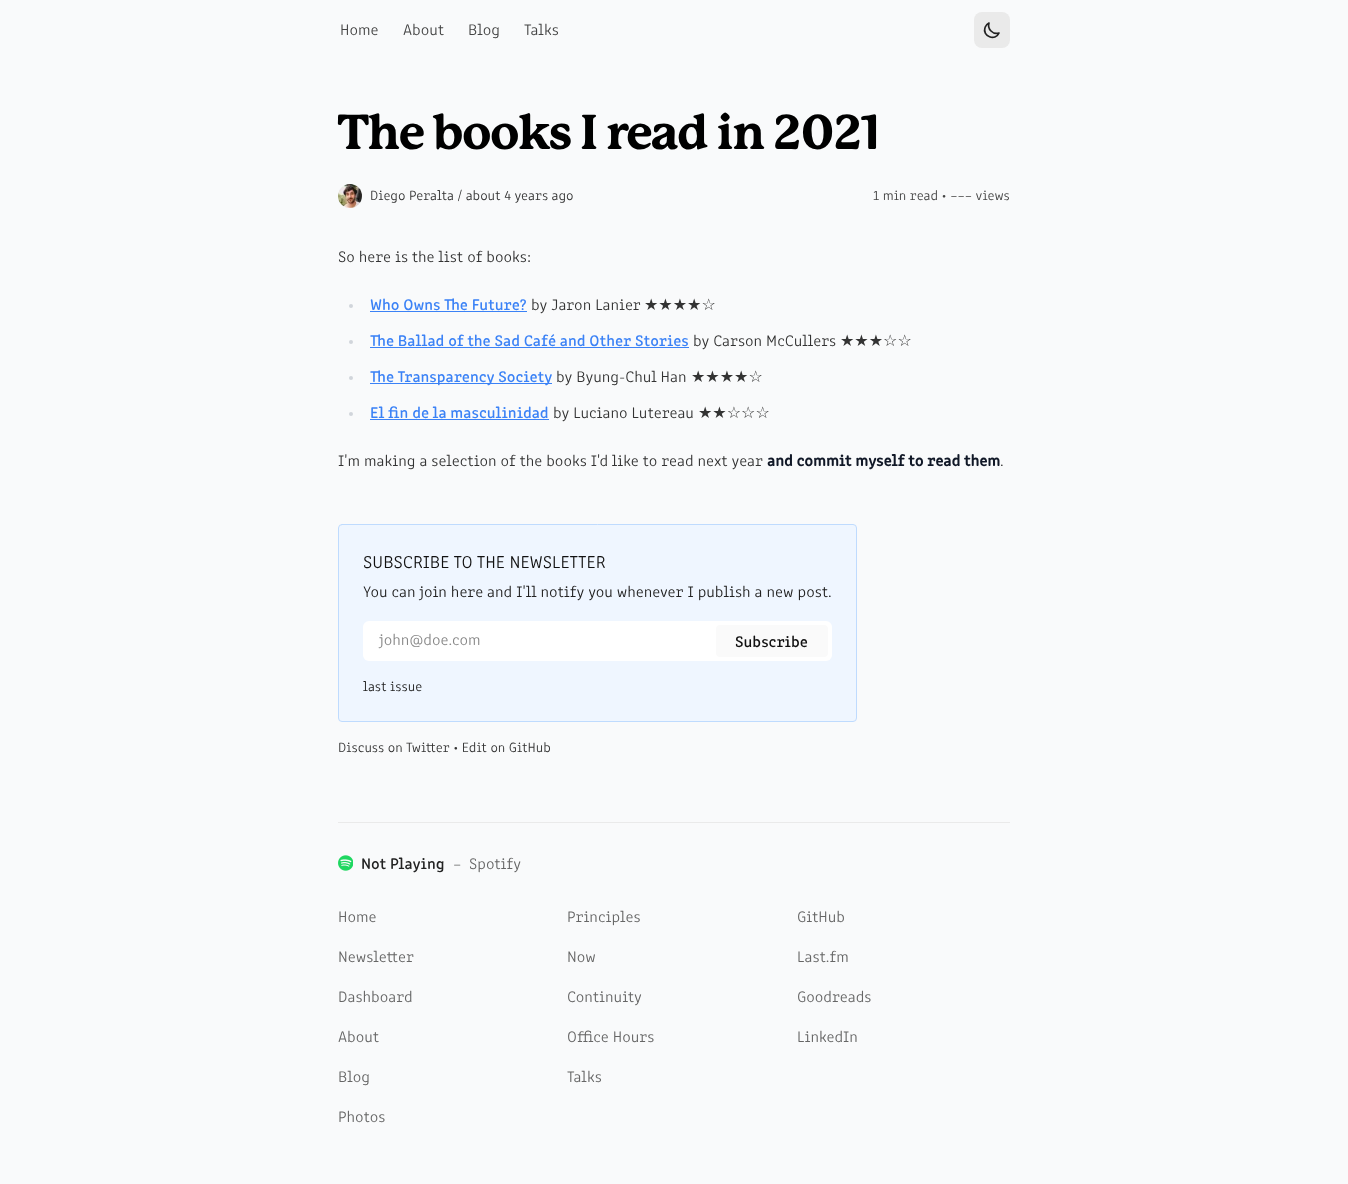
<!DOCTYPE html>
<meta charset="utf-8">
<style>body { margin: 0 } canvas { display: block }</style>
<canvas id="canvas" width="1348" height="1184"></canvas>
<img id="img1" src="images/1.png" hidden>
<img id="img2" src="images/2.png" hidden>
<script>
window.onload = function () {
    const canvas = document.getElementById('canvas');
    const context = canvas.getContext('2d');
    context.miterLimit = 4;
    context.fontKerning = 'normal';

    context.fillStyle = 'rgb(249, 250, 251)';
    context.fillRect(0, 0, 1348, 1184);
    context.fillStyle = 'rgb(234, 234, 234)';
    context.beginPath();
    context.roundRect(974, 12, 36, 36, 8);
    context.fill();
    context.beginPath();
    context.moveTo(999, 33);
    context.bezierCurveTo(993, 35, 987, 29, 989, 23);
    context.bezierCurveTo(987, 24, 985.5, 25.5, 985, 27.5);
    context.bezierCurveTo(982, 36.5, 995.5, 41.5, 999, 33);
    context.closePath();
    context.strokeStyle = 'rgb(34, 34, 34)';
    context.lineWidth = 1.7;
    context.lineCap = 'round';
    context.lineJoin = 'round';
    context.stroke();
    context.drawImage(document.getElementById('img1'), 338, 184, 24, 24);
    context.fillStyle = 'rgb(209, 213, 219)';
    context.beginPath();
    context.arc(351, 306, 2, 0, 2 * Math.PI);
    context.fill();
    context.fillStyle = 'rgb(59, 130, 246)';
    context.fillRect(370, 311, 157, 1);
    context.fillStyle = 'rgb(209, 213, 219)';
    context.beginPath();
    context.arc(351, 342, 2, 0, 2 * Math.PI);
    context.fill();
    context.fillStyle = 'rgb(59, 130, 246)';
    context.fillRect(370, 347, 319, 1);
    context.fillStyle = 'rgb(209, 213, 219)';
    context.beginPath();
    context.arc(351, 378, 2, 0, 2 * Math.PI);
    context.fill();
    context.fillStyle = 'rgb(59, 130, 246)';
    context.fillRect(370, 383, 182, 1);
    context.fillStyle = 'rgb(209, 213, 219)';
    context.beginPath();
    context.arc(351, 414, 2, 0, 2 * Math.PI);
    context.fill();
    context.fillStyle = 'rgb(59, 130, 246)';
    context.fillRect(370, 419, 179, 1);
    context.fillStyle = 'rgb(239, 246, 255)';
    context.beginPath();
    context.roundRect(338.5, 524.5, 518, 197, 3.5);
    context.fill();
    context.strokeStyle = 'rgb(191, 219, 254)';
    context.lineWidth = 1;
    context.lineJoin = 'miter';
    context.stroke();
    context.fillStyle = 'rgb(255, 255, 255)';
    context.beginPath();
    context.roundRect(363, 621, 469, 40, 6);
    context.fill();
    context.fillStyle = 'rgb(250, 250, 250)';
    context.beginPath();
    context.roundRect(716, 625, 112, 32, 4);
    context.fill();
    context.fillStyle = 'rgb(234, 234, 234)';
    context.fillRect(338, 822, 672, 1);
    context.drawImage(document.getElementById('img2'), 338, 855, 15, 16);
    context.font = '300 16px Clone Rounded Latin';
    context.fillStyle = 'rgb(68, 68, 68)';
    context.fillText('Home', 340, 35);
    context.fillText('About', 403, 35);
    context.fillText('Blog', 468, 35);
    context.fillText('Talks', 524, 35);
    context.letterSpacing = '-1.2px';
    context.font = '800 48px "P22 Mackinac"';
    context.fillStyle = 'rgb(0, 0, 0)';
    context.fillText('The books I read in 2021', 338, 149);
    context.letterSpacing = '0px';
    context.font = '300 14px Clone Rounded Latin';
    context.fillStyle = 'rgb(51, 51, 51)';
    context.fillText('Diego Peralta / about 4 years ago', 370, 200);
    context.fillStyle = 'rgb(68, 68, 68)';
    context.fillText('1 min read • ––– views', 873, 200);
    context.font = '300 16px Clone Rounded Latin';
    context.fillStyle = 'rgb(51, 51, 51)';
    context.fillText('So here is the list of books:', 338, 262);
    context.font = '500 16px Clone Rounded Latin';
    context.fillStyle = 'rgb(59, 130, 246)';
    context.fillText('Who Owns The Future?', 370, 310);
    context.font = '300 16px Clone Rounded Latin';
    context.fillStyle = 'rgb(51, 51, 51)';
    context.fillText('by Jaron Lanier', 531, 310);
    context.font = '16px DejaVu Sans';
    context.fillText('★★★★☆', 644, 310);
    context.font = '500 16px Clone Rounded Latin';
    context.fillStyle = 'rgb(59, 130, 246)';
    context.fillText('The Ballad of the Sad Café and Other Stories', 370, 346);
    context.font = '300 16px Clone Rounded Latin';
    context.fillStyle = 'rgb(51, 51, 51)';
    context.fillText('by Carson McCullers', 693, 346);
    context.font = '16px DejaVu Sans';
    context.fillText('★★★☆☆', 840, 346);
    context.font = '500 16px Clone Rounded Latin';
    context.fillStyle = 'rgb(59, 130, 246)';
    context.fillText('The Transparency Society', 370, 382);
    context.font = '300 16px Clone Rounded Latin';
    context.fillStyle = 'rgb(51, 51, 51)';
    context.fillText('by Byung-Chul Han', 556, 382);
    context.font = '16px DejaVu Sans';
    context.fillText('★★★★☆', 691, 382);
    context.font = '500 16px Clone Rounded Latin';
    context.fillStyle = 'rgb(59, 130, 246)';
    context.fillText('El fin de la masculinidad', 370, 418);
    context.font = '300 16px Clone Rounded Latin';
    context.fillStyle = 'rgb(51, 51, 51)';
    context.fillText('by Luciano Lutereau', 553, 418);
    context.font = '16px DejaVu Sans';
    context.fillText('★★☆☆☆', 698, 418);
    context.font = '300 16px Clone Rounded Latin';
    context.fillText('I\'m making a selection of the books I\'d like to read next year', 338, 466);
    context.font = 'bold 16px Clone Rounded Latin';
    context.fillStyle = 'rgb(17, 24, 39)';
    context.fillText('and commit myself to read them', 767, 466);
    context.font = '300 16px Clone Rounded Latin';
    context.fillStyle = 'rgb(51, 51, 51)';
    context.fillText('.', 1000, 466);
    context.font = '300 18px Clone Rounded Latin';
    context.fillStyle = 'rgb(17, 17, 17)';
    context.fillText('SUBSCRIBE TO THE NEWSLETTER', 363, 568);
    context.font = '300 16px Clone Rounded Latin';
    context.fillStyle = 'rgb(34, 34, 34)';
    context.fillText('You can join here and I\'ll notify you whenever I publish a new post.', 363, 597);
    context.fillStyle = 'rgb(136, 136, 136)';
    context.fillText('john@doe.com', 379, 645);
    context.font = '500 16px Clone Rounded Latin';
    context.fillStyle = 'rgb(17, 17, 17)';
    context.fillText('Subscribe', 735, 647);
    context.font = '300 14px Clone Rounded Latin';
    context.fillStyle = 'rgb(34, 34, 34)';
    context.fillText('last issue', 363, 691);
    context.fillStyle = 'rgb(51, 51, 51)';
    context.fillText('Discuss on Twitter • Edit on GitHub', 338, 752);
    context.font = '500 16px Clone Rounded Latin';
    context.fillStyle = 'rgb(34, 34, 34)';
    context.fillText('Not Playing', 361, 869);
    context.font = '300 16px Clone Rounded Latin';
    context.fillStyle = 'rgb(102, 102, 102)';
    context.fillText('–', 453, 869);
    context.fillText('Spotify', 469, 869);
    context.fillText('Home', 338, 922);
    context.fillText('Newsletter', 338, 962);
    context.fillText('Dashboard', 338, 1002);
    context.fillText('About', 338, 1042);
    context.fillText('Blog', 338, 1082);
    context.fillText('Photos', 338, 1122);
    context.fillText('Principles', 567, 922);
    context.fillText('Now', 567, 962);
    context.fillText('Continuity', 567, 1002);
    context.fillText('Office Hours', 567, 1042);
    context.fillText('Talks', 567, 1082);
    context.fillText('GitHub', 797, 922);
    context.fillText('Last.fm', 797, 962);
    context.fillText('Goodreads', 797, 1002);
    context.fillText('LinkedIn', 797, 1042);
};
</script>
